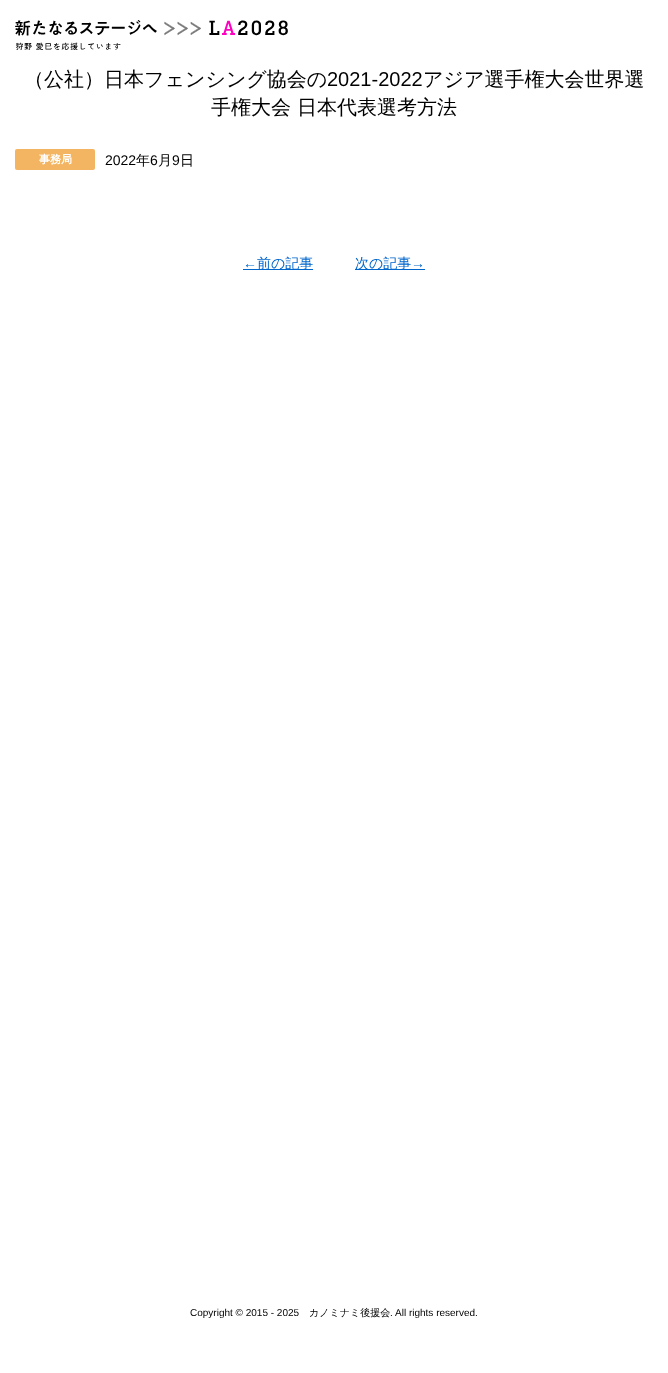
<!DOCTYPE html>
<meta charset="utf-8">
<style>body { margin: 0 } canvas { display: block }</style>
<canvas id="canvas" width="668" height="1373"></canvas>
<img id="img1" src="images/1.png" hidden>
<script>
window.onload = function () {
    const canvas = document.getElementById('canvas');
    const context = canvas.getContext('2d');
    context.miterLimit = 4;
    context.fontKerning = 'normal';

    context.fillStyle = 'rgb(255, 255, 255)';
    context.fillRect(0, 0, 668, 1373);
    context.drawImage(document.getElementById('img1'), 15, 20, 273, 30);
    context.fillStyle = 'rgb(243, 181, 98)';
    context.beginPath();
    context.roundRect(15, 149, 80, 21, 2);
    context.fill();
    context.fillStyle = 'rgb(0, 102, 204)';
    context.fillRect(243, 269, 70, 1);
    context.fillRect(355, 269, 70, 1);
    context.font = '500 20px WenQuanYi Zen Hei';
    context.fillStyle = 'rgb(0, 0, 0)';
    context.fillText('（公社）日本フェンシング協会の', 24, 86);
    context.font = '20px Liberation Sans';
    context.fillText('2021-2022', 327, 86);
    context.font = '500 20px WenQuanYi Zen Hei';
    context.fillText('アジア選手権大会世界選', 423, 86);
    context.fillText('手権大会', 211, 114);
    context.fillText('日本代表選考方法', 297, 114);
    context.font = 'bold 11px WenQuanYi Zen Hei';
    context.fillStyle = 'rgb(255, 255, 255)';
    context.fillText('事務局', 39, 163);
    context.font = '14px Liberation Sans';
    context.fillStyle = 'rgb(0, 0, 0)';
    context.fillText('2022', 105, 165);
    context.font = '500 14px WenQuanYi Zen Hei';
    context.fillText('年', 136, 165);
    context.font = '14px Liberation Sans';
    context.fillText('6', 150, 165);
    context.font = '500 14px WenQuanYi Zen Hei';
    context.fillText('月', 158, 165);
    context.font = '14px Liberation Sans';
    context.fillText('9', 172, 165);
    context.font = '500 14px WenQuanYi Zen Hei';
    context.fillText('日', 180, 165);
    context.font = '14px Liberation Sans';
    context.fillStyle = 'rgb(0, 102, 204)';
    context.fillText('←', 243, 268);
    context.font = '500 14px WenQuanYi Zen Hei';
    context.fillText('前の記事', 257, 268);
    context.fillText('次の記事', 355, 268);
    context.font = '14px Liberation Sans';
    context.fillText('→', 411, 268);
    context.font = '10px Liberation Sans';
    context.fillStyle = 'rgb(0, 0, 0)';
    context.fillText('Copyright © 2015 - 2025', 190, 1316);
    context.font = '500 10px WenQuanYi Zen Hei';
    context.fillText('カノミナミ後援会', 309, 1316);
    context.font = '10px Liberation Sans';
    context.fillText('. All rights reserved.', 390, 1316);
};
</script>
